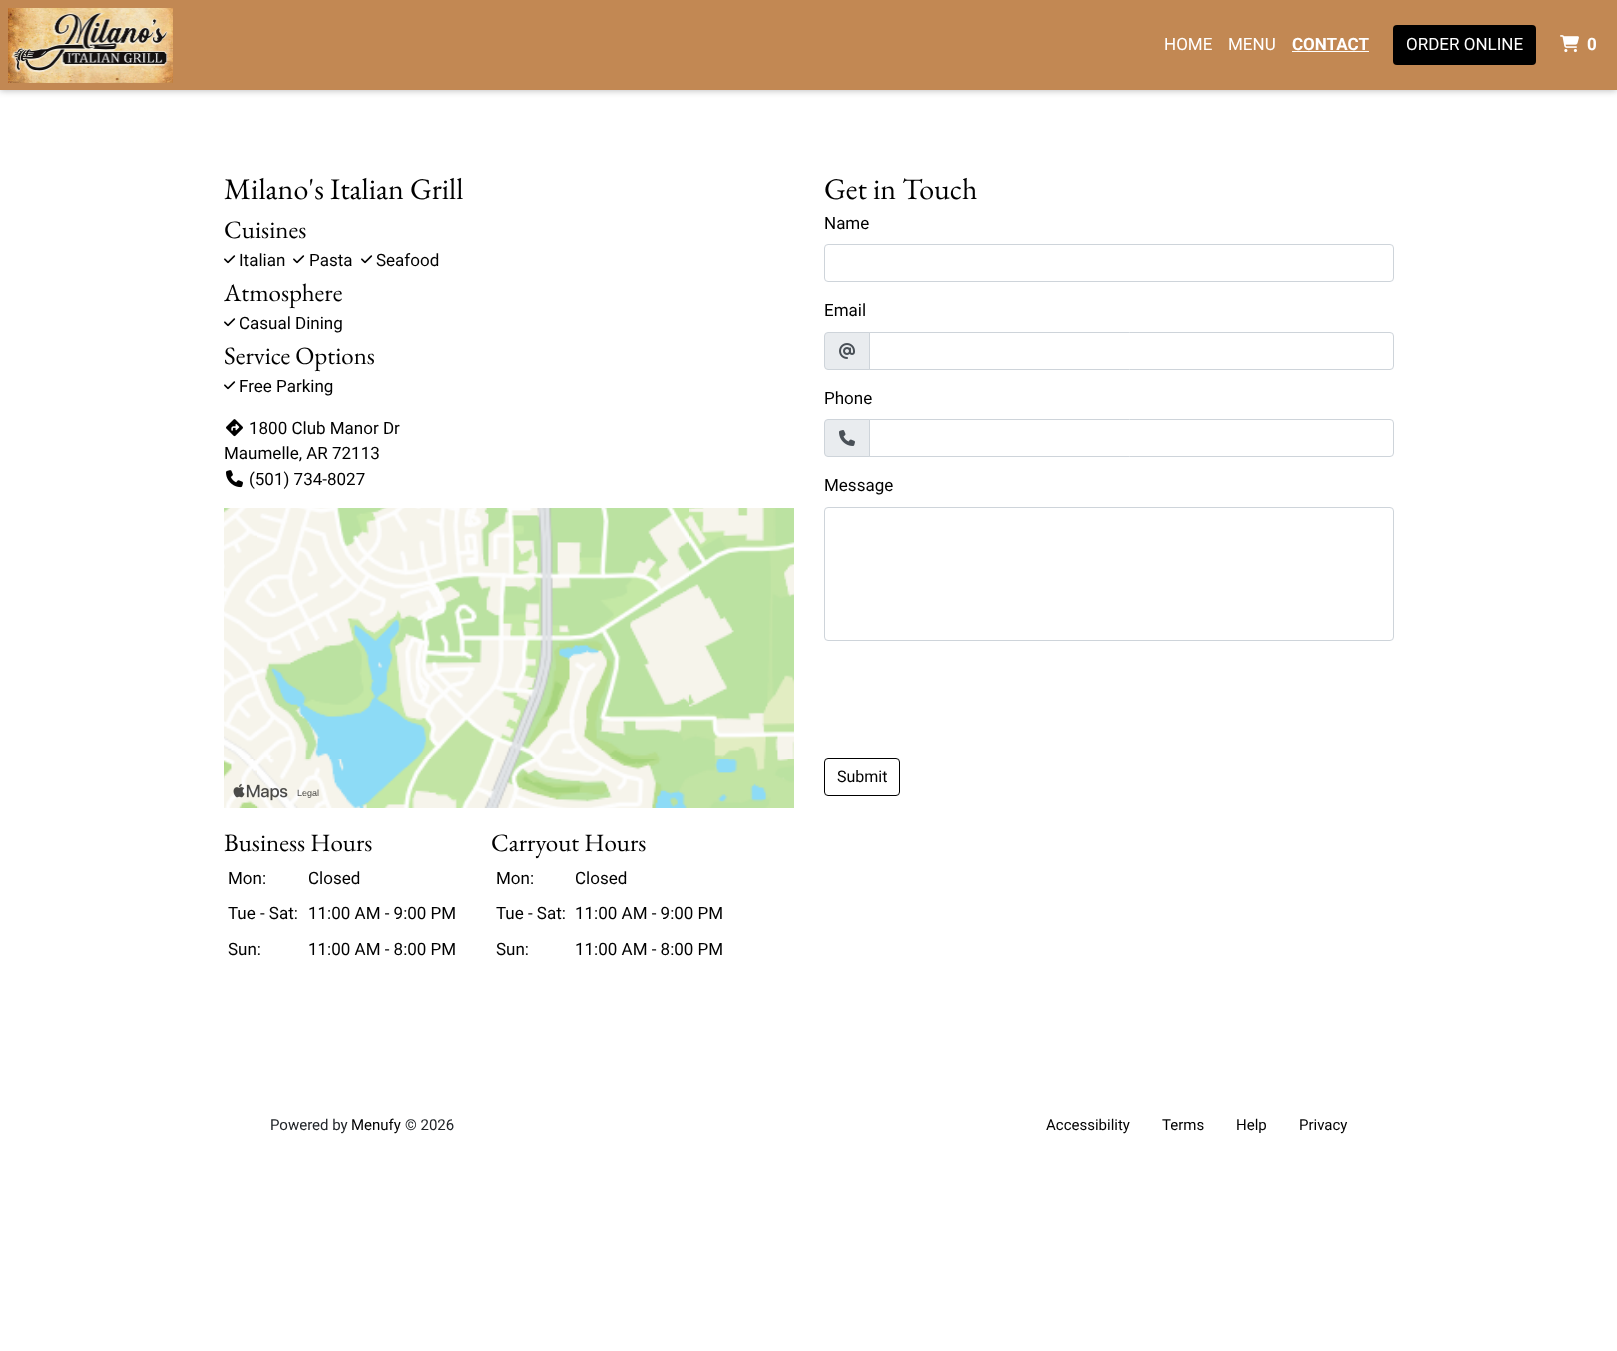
<!DOCTYPE html>
<meta charset="utf-8">
<style>body { margin: 0 } canvas { display: block }</style>
<canvas id="canvas" width="1617" height="1351"></canvas>
<img id="img1" src="images/1.png" hidden>
<img id="img2" src="images/2.png" hidden>
<img id="img3" src="images/3.png" hidden>
<img id="img4" src="images/4.png" hidden>
<img id="img5" src="images/5.png" hidden>
<img id="img6" src="images/6.png" hidden>
<img id="img7" src="images/7.png" hidden>
<img id="img8" src="images/8.png" hidden>
<img id="img9" src="images/9.png" hidden>
<script>
window.onload = function () {
    const canvas = document.getElementById('canvas');
    const context = canvas.getContext('2d');
    context.miterLimit = 4;
    context.fontKerning = 'normal';

    context.fillStyle = 'rgb(255, 255, 255)';
    context.fillRect(0, 0, 1617, 1351);
    context.fillStyle = 'rgba(32, 33, 36, 0.28)';
    context.filter = 'blur(3px)';
    context.beginPath();
    context.rect(0, 1, 1617, 90);
    context.fill();
    context.filter = 'none';
    context.fillStyle = 'rgb(194, 136, 83)';
    context.fillRect(0, 0, 1617, 90);
    context.drawImage(document.getElementById('img1'), 8, 8, 165, 75);
    context.fillStyle = 'rgb(255, 255, 255)';
    context.fillRect(1292, 51, 77, 1);
    context.fillStyle = 'rgb(0, 0, 0)';
    context.beginPath();
    context.roundRect(1393, 25, 143, 40, 4);
    context.fill();
    context.drawImage(document.getElementById('img2'), 1560, 35, 19, 18);
    context.drawImage(document.getElementById('img3'), 224, 255, 12, 9);
    context.drawImage(document.getElementById('img3'), 293, 255, 12, 9);
    context.drawImage(document.getElementById('img3'), 361, 255, 12, 9);
    context.drawImage(document.getElementById('img3'), 224, 318, 12, 9);
    context.drawImage(document.getElementById('img3'), 224, 381, 12, 9);
    context.drawImage(document.getElementById('img4'), 226, 419, 17, 18);
    context.drawImage(document.getElementById('img5'), 226, 470, 17, 18);
    context.drawImage(document.getElementById('img6'), 224, 508, 570, 300);
    context.drawImage(document.getElementById('img7'), 233, 783, 55, 18);
    context.beginPath();
    context.roundRect(824.5, 244.5, 569, 37, 3.5);
    context.strokeStyle = 'rgb(206, 212, 218)';
    context.stroke();
    context.fillStyle = 'rgb(233, 236, 239)';
    context.beginPath();
    context.roundRect(824.5, 332.5, 45, 37, [3.5, 0, 0, 3.5]);
    context.fill();
    context.stroke();
    context.drawImage(document.getElementById('img8'), 839, 343, 16, 16);
    context.beginPath();
    context.roundRect(869.5, 332.5, 524, 37, [0, 3.5, 3.5, 0]);
    context.stroke();
    context.beginPath();
    context.roundRect(824.5, 419.5, 45, 37, [3.5, 0, 0, 3.5]);
    context.fill();
    context.stroke();
    context.drawImage(document.getElementById('img9'), 839, 430, 16, 16);
    context.beginPath();
    context.roundRect(869.5, 419.5, 524, 37, [0, 3.5, 3.5, 0]);
    context.stroke();
    context.beginPath();
    context.roundRect(824.5, 507.5, 569, 133, 3.5);
    context.stroke();
    context.beginPath();
    context.roundRect(824.5, 758.5, 75, 37, 3.5);
    context.strokeStyle = 'rgb(0, 0, 0)';
    context.stroke();
    context.font = '17px Roboto';
    context.fillStyle = 'rgb(255, 255, 255)';
    context.fillText('HOME', 1164, 50);
    context.fillText('MENU', 1228, 50);
    context.font = 'bold 17px Roboto';
    context.fillText('CONTACT', 1292, 50);
    context.font = '17px Roboto';
    context.fillText('ORDER ONLINE', 1406, 50);
    context.font = 'bold 17px Roboto';
    context.fillText('0', 1587, 50);
    context.font = '30px EB Garamond';
    context.fillStyle = 'rgb(0, 0, 0)';
    context.fillText('Milano\'s Italian Grill', 224, 199);
    context.font = '25px EB Garamond';
    context.fillText('Cuisines', 224, 238);
    context.font = '17px Roboto';
    context.fillText('Italian', 239, 266);
    context.fillText('Pasta', 309, 266);
    context.fillText('Seafood', 376, 266);
    context.font = '25px EB Garamond';
    context.fillText('Atmosphere', 224, 301);
    context.font = '17px Roboto';
    context.fillText('Casual Dining', 239, 329);
    context.font = '25px EB Garamond';
    context.fillText('Service Options', 224, 364);
    context.font = '17px Roboto';
    context.fillText('Free Parking', 239, 392);
    context.fillText('1800 Club Manor Dr', 249, 434);
    context.fillText('Maumelle, AR 72113', 224, 459);
    context.fillText('(501) 734-8027', 249, 485);
    context.font = '9px Liberation Sans';
    context.fillStyle = 'rgb(74, 74, 71)';
    context.fillText('Legal', 297, 796);
    context.font = '25px EB Garamond';
    context.fillStyle = 'rgb(0, 0, 0)';
    context.fillText('Business Hours', 224, 851);
    context.font = '17px Roboto';
    context.fillText('Mon:', 228, 884);
    context.fillText('Closed', 308, 884);
    context.fillText('Tue - Sat:', 228, 919);
    context.fillText('11:00 AM - 9:00 PM', 308, 919);
    context.fillText('Sun:', 228, 955);
    context.fillText('11:00 AM - 8:00 PM', 308, 955);
    context.font = '25px EB Garamond';
    context.fillText('Carryout Hours', 491, 851);
    context.font = '17px Roboto';
    context.fillText('Mon:', 496, 884);
    context.fillText('Closed', 575, 884);
    context.fillText('Tue - Sat:', 496, 919);
    context.fillText('11:00 AM - 9:00 PM', 575, 919);
    context.fillText('Sun:', 496, 955);
    context.fillText('11:00 AM - 8:00 PM', 575, 955);
    context.font = '30px EB Garamond';
    context.fillText('Get in Touch', 824, 199);
    context.font = '17px Roboto';
    context.fillText('Name', 824, 229);
    context.fillText('Email', 824, 316);
    context.fillText('Phone', 824, 404);
    context.fillText('Message', 824, 491);
    context.font = '16px Roboto';
    context.fillText('Submit', 837, 782);
    context.font = '15px Roboto';
    context.fillStyle = 'rgb(33, 37, 41)';
    context.fillText('Powered by', 270, 1130);
    context.fillStyle = 'rgb(0, 0, 0)';
    context.fillText('Menufy', 351, 1130);
    context.fillStyle = 'rgb(33, 37, 41)';
    context.fillText('© 2026', 405, 1130);
    context.fillStyle = 'rgb(0, 0, 0)';
    context.fillText('Accessibility', 1046, 1130);
    context.fillText('Terms', 1162, 1130);
    context.fillText('Help', 1236, 1130);
    context.fillText('Privacy', 1299, 1130);
};
</script>
